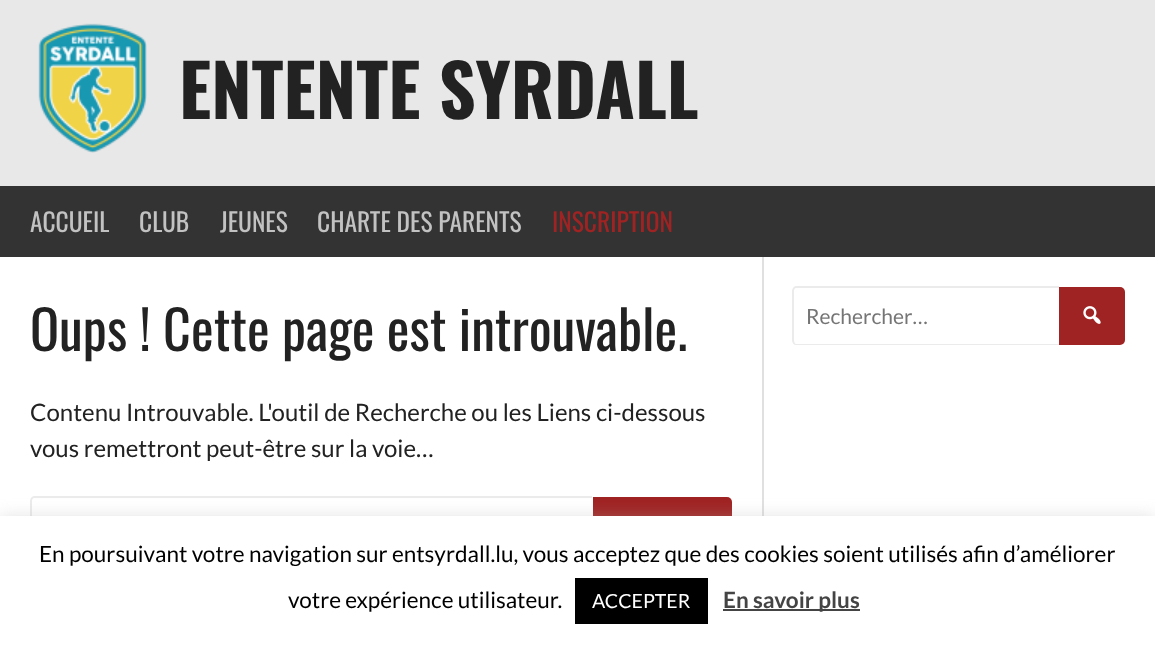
<!DOCTYPE html>
<meta charset="utf-8">
<style>body { margin: 0 } canvas { display: block }</style>
<canvas id="canvas" width="1155" height="649"></canvas>
<img id="img1" src="images/1.png" hidden>
<img id="img2" src="images/2.png" hidden>
<script>
window.onload = function () {
    const canvas = document.getElementById('canvas');
    const context = canvas.getContext('2d');
    context.miterLimit = 4;
    context.fontKerning = 'normal';

    context.fillStyle = 'rgb(232, 232, 232)';
    context.fillRect(0, 0, 1155, 649);
    context.drawImage(document.getElementById('img1'), 38, 23, 109, 130);
    context.fillStyle = 'rgb(51, 51, 51)';
    context.fillRect(0, 186, 1155, 71);
    context.fillStyle = 'rgb(255, 255, 255)';
    context.fillRect(0, 257, 1155, 259);
    context.fillStyle = 'rgb(224, 224, 224)';
    context.beginPath();
    context.moveTo(2, 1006);
    context.lineTo(2, 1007);
    context.lineTo(764, 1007);
    context.lineTo(764, 257);
    context.lineTo(762, 257);
    context.lineTo(762, 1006);
    context.closePath();
    context.fill();
    context.fillStyle = 'rgb(235, 235, 235)';
    context.beginPath();
    context.moveTo(34, 496);
    context.lineTo(592, 496);
    context.lineTo(592, 555);
    context.lineTo(34, 555);
    context.bezierCurveTo(32, 555, 30, 553, 30, 550);
    context.lineTo(30, 501);
    context.bezierCurveTo(30, 499, 32, 496, 34, 496);
    context.closePath();
    context.moveTo(34, 498);
    context.lineTo(592, 498);
    context.lineTo(592, 554);
    context.lineTo(34, 554);
    context.bezierCurveTo(33, 554, 32, 552, 32, 550);
    context.lineTo(32, 501);
    context.bezierCurveTo(32, 499, 33, 498, 34, 498);
    context.closePath();
    context.fill('evenodd');
    context.fillStyle = 'rgb(160, 35, 35)';
    context.beginPath();
    context.roundRect(593, 497, 139, 58, [0, 5, 5, 0]);
    context.fill();
    context.fillStyle = 'rgb(235, 235, 235)';
    context.beginPath();
    context.moveTo(796, 286);
    context.lineTo(1059, 286);
    context.lineTo(1059, 345);
    context.lineTo(796, 345);
    context.bezierCurveTo(794, 345, 792, 343, 792, 340);
    context.lineTo(792, 291);
    context.bezierCurveTo(792, 289, 794, 286, 796, 286);
    context.closePath();
    context.moveTo(796, 288);
    context.lineTo(1059, 288);
    context.lineTo(1059, 344);
    context.lineTo(796, 344);
    context.bezierCurveTo(795, 344, 794, 342, 794, 340);
    context.lineTo(794, 291);
    context.bezierCurveTo(794, 289, 795, 288, 796, 288);
    context.closePath();
    context.fill('evenodd');
    context.fillStyle = 'rgb(160, 35, 35)';
    context.beginPath();
    context.roundRect(1059, 287, 66, 58, [0, 5, 5, 0]);
    context.fill();
    context.drawImage(document.getElementById('img2'), 1083, 306, 18, 18);
    context.fillStyle = 'rgba(172, 171, 171, 0.3)';
    context.filter = 'blur(7.5px)';
    context.beginPath();
    context.rect(0, 515, 1155, 133);
    context.fill();
    context.filter = 'none';
    context.fillStyle = 'rgb(255, 255, 255)';
    context.fillRect(0, 516, 1155, 133);
    context.fillStyle = 'rgb(0, 0, 0)';
    context.fillRect(575, 578, 133, 46);
    context.fillStyle = 'rgb(68, 68, 68)';
    context.fillRect(723, 609, 137, 2);
    context.font = 'bold 72px Oswald';
    context.fillStyle = 'rgb(34, 34, 34)';
    context.fillText('ENTENTE SYRDALL', 179, 119);
    context.font = '25.5px Oswald';
    context.fillStyle = 'rgb(194, 194, 194)';
    context.fillText('ACCUEIL', 30, 232);
    context.fillText('CLUB', 139, 232);
    context.fillText('JEUNES', 220, 232);
    context.fillText('CHARTE DES PARENTS', 317, 232);
    context.fillStyle = 'rgb(160, 35, 35)';
    context.fillText('INSCRIPTION', 552, 232);
    context.font = '54px Oswald';
    context.fillStyle = 'rgb(34, 34, 34)';
    context.fillText('Oups ! Cette page est introuvable.', 30, 351);
    context.font = '24px Lato';
    context.fillText('Contenu Introuvable. L\'outil de Recherche ou les Liens ci-dessous', 30, 421);
    context.fillText('vous remettront peut-être sur la voie…', 30, 457);
    context.font = '21px Lato';
    context.fillStyle = 'rgb(117, 117, 117)';
    context.fillText('Rechercher…', 806, 324);
    context.font = '22.5px Lato';
    context.fillStyle = 'rgb(0, 0, 0)';
    context.fillText('En poursuivant votre navigation sur entsyrdall.lu, vous acceptez que des cookies soient utilisés afin d’améliorer', 39, 562);
    context.fillText('votre expérience utilisateur.', 288, 608);
    context.font = '19.5px Lato';
    context.fillStyle = 'rgb(255, 255, 255)';
    context.fillText('ACCEPTER', 592, 608);
    context.font = 'bold 22.5px Lato';
    context.fillStyle = 'rgb(68, 68, 68)';
    context.fillText('En savoir plus', 723, 608);
};
</script>
